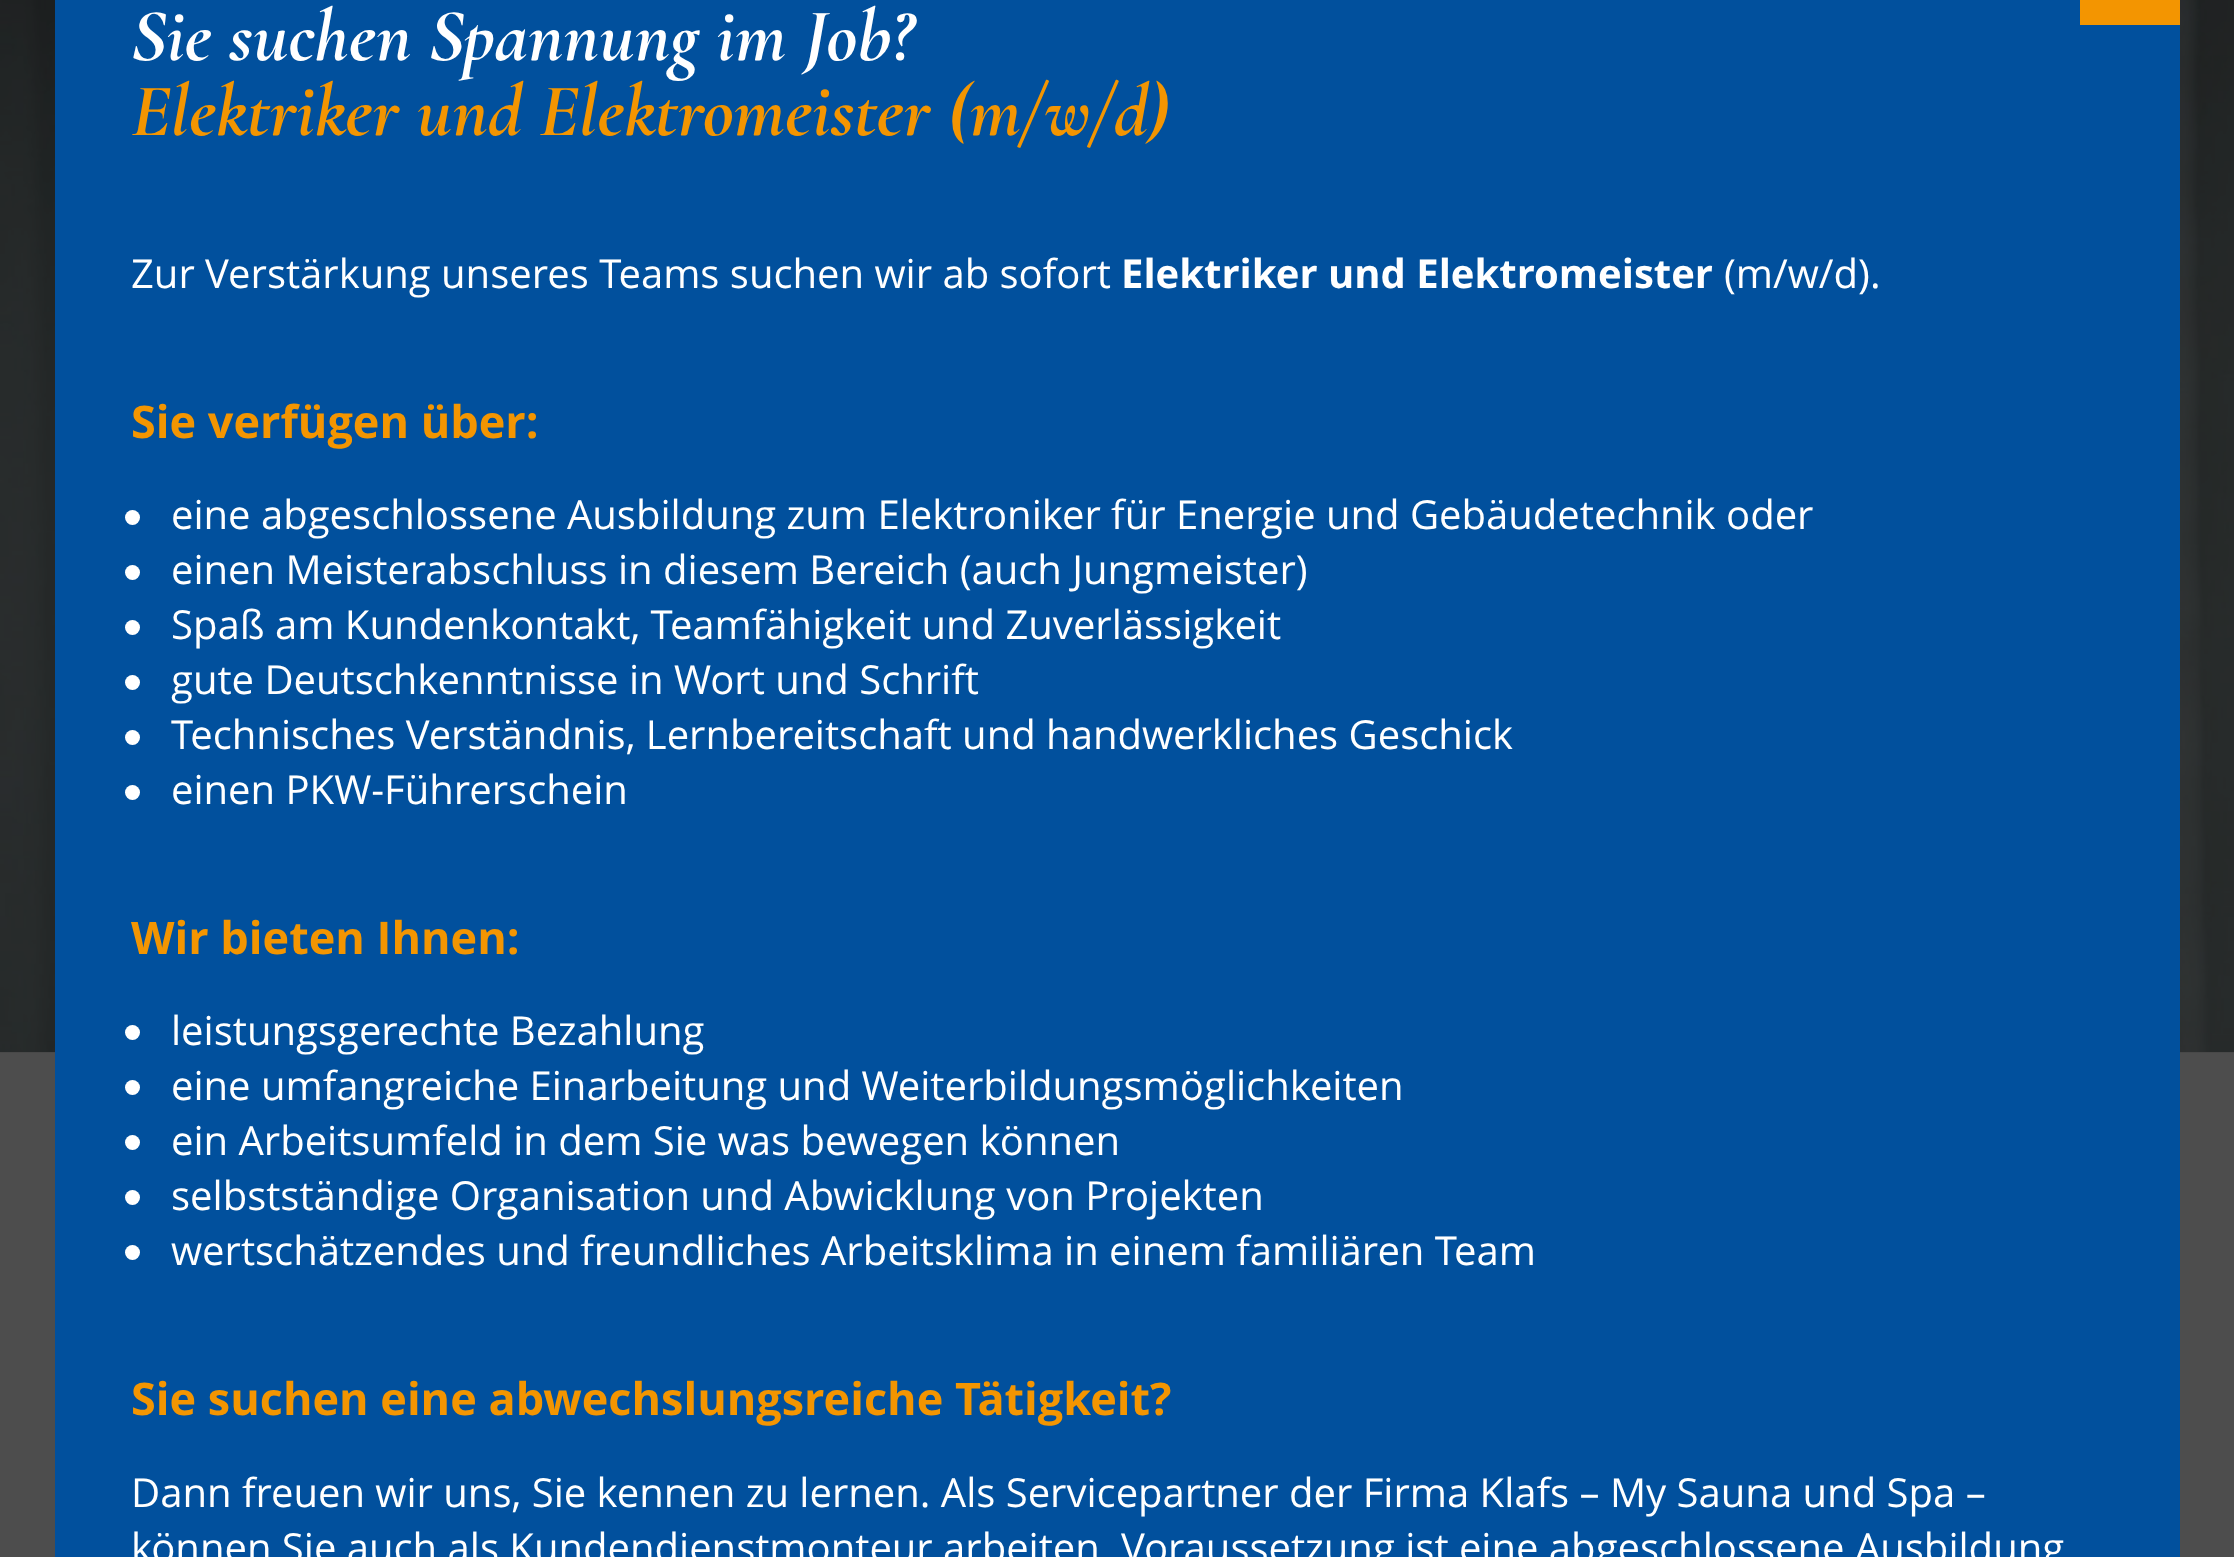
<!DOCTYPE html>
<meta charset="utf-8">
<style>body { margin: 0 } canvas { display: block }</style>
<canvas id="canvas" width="2234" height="1557"></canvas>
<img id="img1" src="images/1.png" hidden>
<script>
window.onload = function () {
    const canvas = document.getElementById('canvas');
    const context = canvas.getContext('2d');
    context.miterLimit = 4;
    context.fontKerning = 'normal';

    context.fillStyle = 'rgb(72, 72, 72)';
    context.fillRect(0, 0, 2234, 1557);
    context.drawImage(document.getElementById('img1'), 0, 0, 2234, 1052);
    context.fillStyle = 'rgb(77, 77, 77)';
    context.fillRect(0, 1053, 55, 102);
    context.fillRect(2180, 1053, 54, 102);
    context.fillRect(0, 1155, 2234, 402);
    context.fillStyle = 'rgb(1, 80, 157)';
    context.fillRect(55, 0, 2125, 1557);
    context.fillStyle = 'rgb(255, 255, 255)';
    context.beginPath();
    context.arc(132.5, 517.5, 7.5, 0, 2 * Math.PI);
    context.fill();
    context.beginPath();
    context.arc(132.5, 572.5, 7.5, 0, 2 * Math.PI);
    context.fill();
    context.beginPath();
    context.arc(132.5, 627.5, 7.5, 0, 2 * Math.PI);
    context.fill();
    context.beginPath();
    context.arc(132.5, 682.5, 7.5, 0, 2 * Math.PI);
    context.fill();
    context.beginPath();
    context.arc(132.5, 737.5, 7.5, 0, 2 * Math.PI);
    context.fill();
    context.beginPath();
    context.arc(132.5, 792.5, 7.5, 0, 2 * Math.PI);
    context.fill();
    context.beginPath();
    context.arc(132.5, 1032.5, 7.5, 0, 2 * Math.PI);
    context.fill();
    context.beginPath();
    context.arc(132.5, 1087.5, 7.5, 0, 2 * Math.PI);
    context.fill();
    context.beginPath();
    context.arc(132.5, 1142.5, 7.5, 0, 2 * Math.PI);
    context.fill();
    context.beginPath();
    context.arc(132.5, 1197.5, 7.5, 0, 2 * Math.PI);
    context.fill();
    context.beginPath();
    context.arc(132.5, 1252.5, 7.5, 0, 2 * Math.PI);
    context.fill();
    context.fillStyle = 'rgb(243, 149, 1)';
    context.fillRect(2080, 0, 100, 25);
    context.font = 'italic bold 75px Cormorant Garamond';
    context.fillStyle = 'rgb(255, 255, 255)';
    context.fillText('Sie suchen Spannung im Job?', 131, 60);
    context.fillStyle = 'rgb(243, 149, 1)';
    context.fillText('Elektriker und Elektromeister (m/w/d)', 131, 135);
    context.font = '40px Open Sans';
    context.fillStyle = 'rgb(255, 255, 255)';
    context.fillText('Zur Verstärkung unseres Teams suchen wir ab sofort', 131, 288);
    context.font = 'bold 40px Open Sans';
    context.fillText('Elektriker und Elektromeister', 1121, 288);
    context.font = '40px Open Sans';
    context.fillText('(m/w/d).', 1724, 288);
    context.font = 'bold 45px Open Sans';
    context.fillStyle = 'rgb(243, 149, 1)';
    context.fillText('Sie verfügen über:', 131, 438);
    context.font = '40px Open Sans';
    context.fillStyle = 'rgb(255, 255, 255)';
    context.fillText('eine abgeschlossene Ausbildung zum Elektroniker für Energie und Gebäudetechnik oder', 171, 529);
    context.fillText('einen Meisterabschluss in diesem Bereich (auch Jungmeister)', 171, 584);
    context.fillText('Spaß am Kundenkontakt, Teamfähigkeit und Zuverlässigkeit', 171, 639);
    context.fillText('gute Deutschkenntnisse in Wort und Schrift', 171, 694);
    context.fillText('Technisches Verständnis, Lernbereitschaft und handwerkliches Geschick', 171, 749);
    context.fillText('einen PKW-Führerschein', 171, 804);
    context.font = 'bold 45px Open Sans';
    context.fillStyle = 'rgb(243, 149, 1)';
    context.fillText('Wir bieten Ihnen:', 131, 954);
    context.font = '40px Open Sans';
    context.fillStyle = 'rgb(255, 255, 255)';
    context.fillText('leistungsgerechte Bezahlung', 171, 1045);
    context.fillText('eine umfangreiche Einarbeitung und Weiterbildungsmöglichkeiten', 171, 1100);
    context.fillText('ein Arbeitsumfeld in dem Sie was bewegen können', 171, 1155);
    context.fillText('selbstständige Organisation und Abwicklung von Projekten', 171, 1210);
    context.fillText('wertschätzendes und freundliches Arbeitsklima in einem familiären Team', 171, 1265);
    context.font = 'bold 45px Open Sans';
    context.fillStyle = 'rgb(243, 149, 1)';
    context.fillText('Sie suchen eine abwechslungsreiche Tätigkeit?', 131, 1415);
    context.font = '40px Open Sans';
    context.fillStyle = 'rgb(255, 255, 255)';
    context.fillText('Dann freuen wir uns, Sie kennen zu lernen. Als Servicepartner der Firma Klafs – My Sauna und Spa –', 131, 1507);
    context.fillText('können Sie auch als Kundendienstmonteur arbeiten. Voraussetzung ist eine abgeschlossene Ausbildung', 131, 1562);
};
</script>
